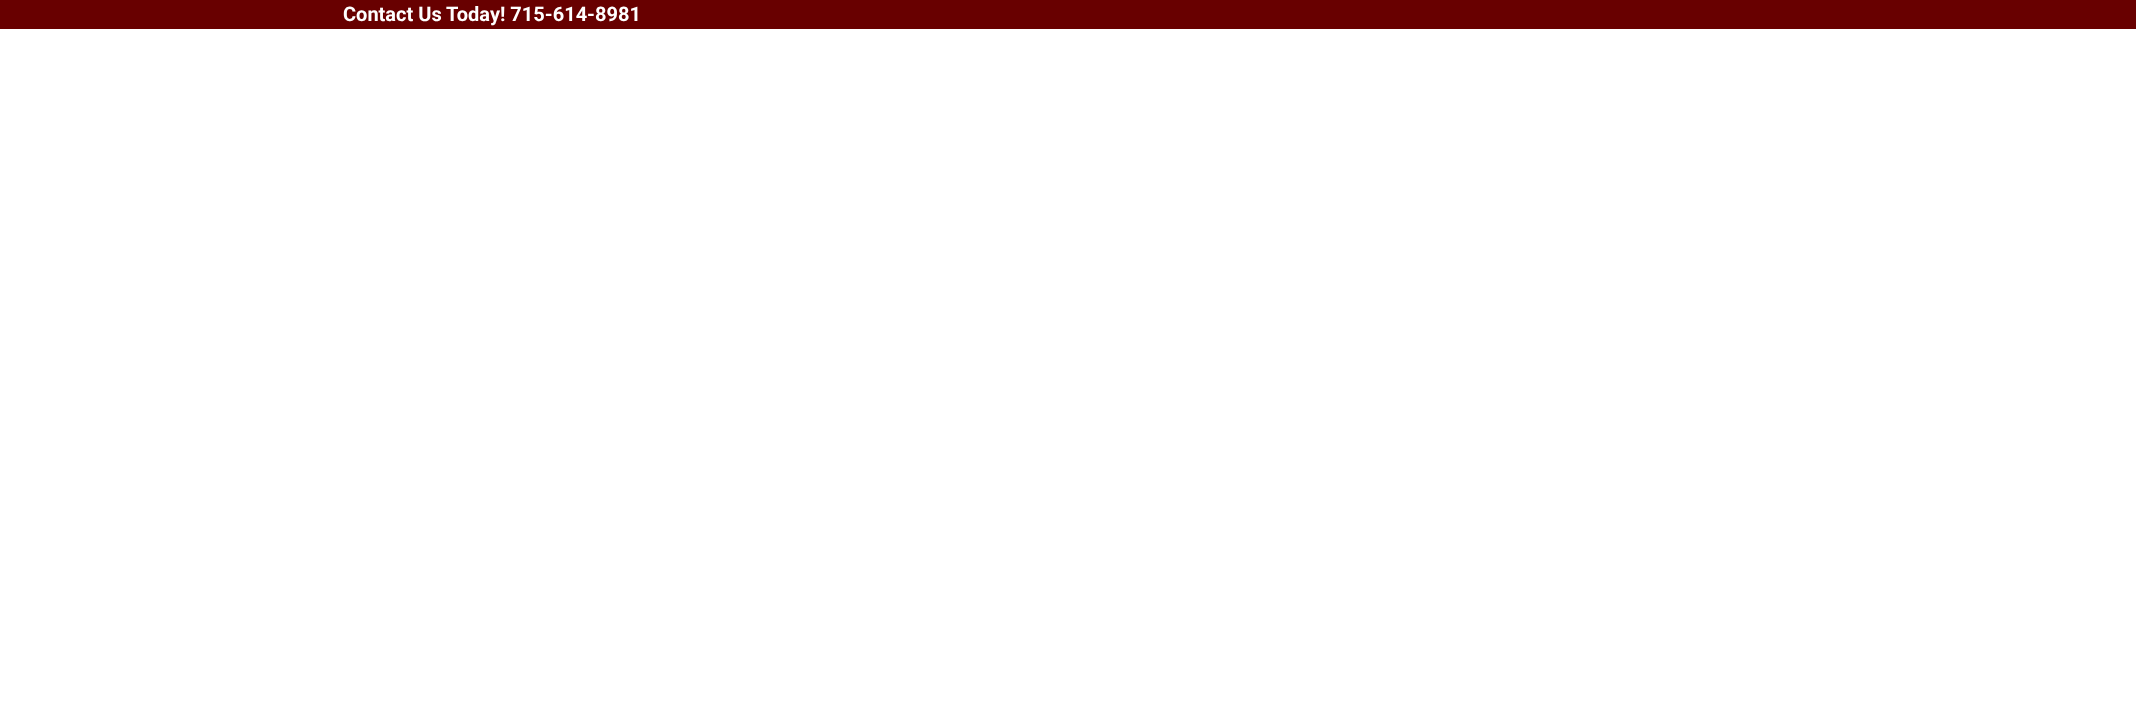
<!DOCTYPE html>
<meta charset="utf-8">
<style>body { margin: 0 } canvas { display: block }</style>
<canvas id="canvas" width="2136" height="724"></canvas>
<script>
window.onload = function () {
    const canvas = document.getElementById('canvas');
    const context = canvas.getContext('2d');
    context.miterLimit = 4;
    context.fontKerning = 'normal';

    context.fillStyle = 'rgb(255, 255, 255)';
    context.fillRect(0, 0, 2136, 724);
    context.fillStyle = 'rgb(104, 0, 0)';
    context.fillRect(0, 0, 2136, 29);
    context.font = 'bold 20px Roboto';
    context.fillStyle = 'rgb(255, 255, 255)';
    context.fillText('Contact Us Today! 715-614-8981', 343, 21);
};
</script>
